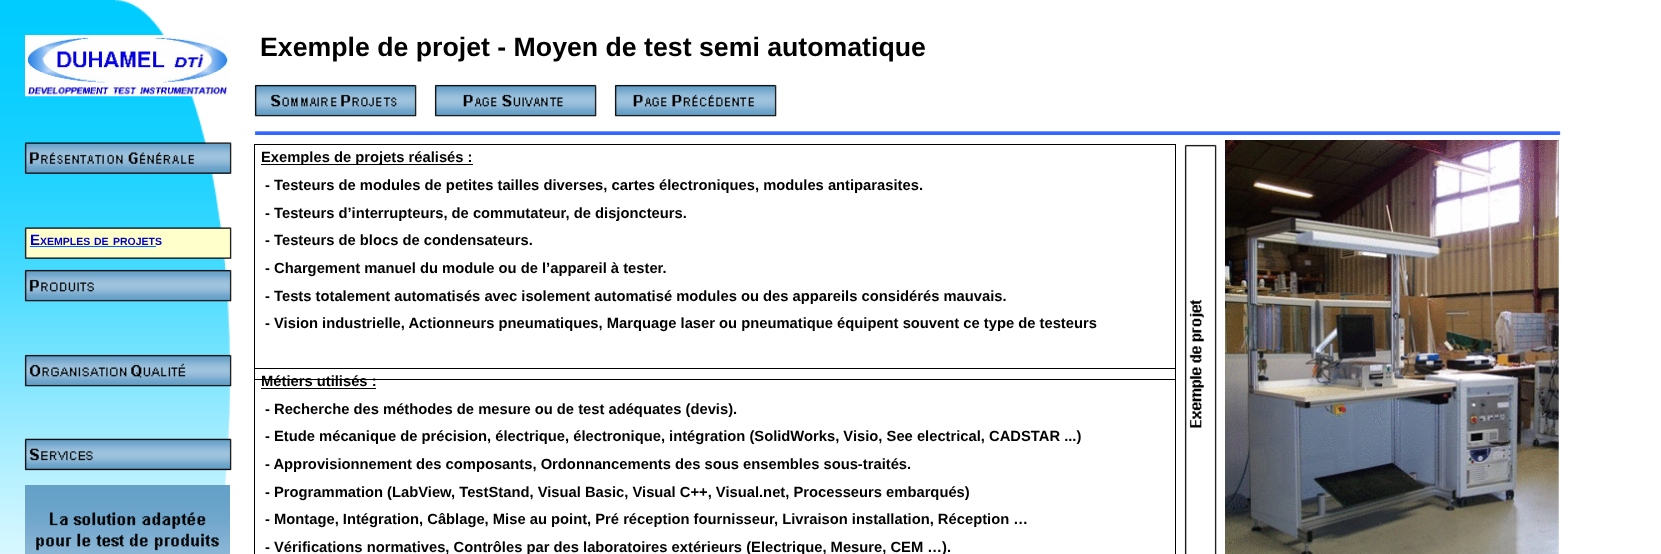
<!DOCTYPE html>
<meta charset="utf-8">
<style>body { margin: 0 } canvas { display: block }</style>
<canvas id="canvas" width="1661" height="554"></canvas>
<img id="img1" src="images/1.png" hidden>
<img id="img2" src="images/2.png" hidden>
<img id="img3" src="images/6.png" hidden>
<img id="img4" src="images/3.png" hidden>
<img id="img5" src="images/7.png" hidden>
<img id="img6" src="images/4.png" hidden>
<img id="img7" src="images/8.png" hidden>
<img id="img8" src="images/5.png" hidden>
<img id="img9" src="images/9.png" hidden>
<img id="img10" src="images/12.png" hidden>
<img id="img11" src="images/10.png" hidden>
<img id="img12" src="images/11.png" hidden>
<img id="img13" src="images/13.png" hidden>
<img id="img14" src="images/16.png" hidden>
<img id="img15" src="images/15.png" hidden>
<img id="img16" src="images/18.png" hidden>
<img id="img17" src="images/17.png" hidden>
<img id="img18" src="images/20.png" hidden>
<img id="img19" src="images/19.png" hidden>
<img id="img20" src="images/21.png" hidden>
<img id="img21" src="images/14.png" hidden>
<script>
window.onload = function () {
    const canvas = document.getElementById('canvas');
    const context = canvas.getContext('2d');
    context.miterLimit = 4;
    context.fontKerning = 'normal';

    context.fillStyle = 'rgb(255, 255, 255)';
    context.fillRect(0, 0, 1661, 554);
    context.drawImage(document.getElementById('img1'), 0, 0, 230, 554);
    context.drawImage(document.getElementById('img2'), 25, 35, 205, 62);
    context.drawImage(document.getElementById('img3'), 255, 85, 160, 30);
    context.drawImage(document.getElementById('img4'), 254, 84, 163, 33);
    context.drawImage(document.getElementById('img5'), 435, 85, 160, 30);
    context.drawImage(document.getElementById('img6'), 434, 84, 163, 33);
    context.drawImage(document.getElementById('img7'), 615, 85, 160, 30);
    context.drawImage(document.getElementById('img8'), 614, 84, 163, 33);
    context.drawImage(document.getElementById('img9'), 254, 131, 1307, 4);
    context.drawImage(document.getElementById('img10'), 25, 143, 205, 31);
    context.drawImage(document.getElementById('img11'), 24, 142, 208, 32);
    context.drawImage(document.getElementById('img12'), 1225, 140, 334, 414);
    context.strokeStyle = 'rgb(0, 0, 0)';
    context.strokeRect(254.5, 144.5, 921, 235);
    context.fillStyle = 'rgb(0, 0, 0)';
    context.fillRect(261, 164, 212, 1);
    context.drawImage(document.getElementById('img13'), 1184, 144, 33, 410);
    context.fillStyle = 'rgb(255, 255, 204)';
    context.fillRect(25, 228, 205, 30);
    context.fillStyle = 'rgb(0, 102, 255)';
    context.fillRect(30, 246, 126, 1);
    context.drawImage(document.getElementById('img14'), 25, 270, 205, 30);
    context.drawImage(document.getElementById('img15'), 24, 269, 208, 33);
    context.drawImage(document.getElementById('img16'), 25, 355, 205, 30);
    context.drawImage(document.getElementById('img17'), 24, 354, 208, 33);
    context.drawImage(document.getElementById('img18'), 25, 440, 205, 30);
    context.drawImage(document.getElementById('img19'), 24, 438, 208, 33);
    context.strokeRect(254.5, 368.5, 921, 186);
    context.fillStyle = 'rgb(0, 0, 0)';
    context.fillRect(261, 388, 115, 1);
    context.drawImage(document.getElementById('img20'), 25, 485, 205, 69);
    context.font = 'bold 26.7px Liberation Sans';
    context.fillText('Exemple de projet - Moyen de test semi automatique', 260, 56);
    context.font = 'bold 14.75px Liberation Sans';
    context.fillText('Exemples de projets réalisés :', 261, 162);
    context.fillText('- Testeurs de modules de petites tailles diverses, cartes électroniques, modules antiparasites.', 265, 190);
    context.fillText('- Testeurs d’interrupteurs, de commutateur, de disjoncteurs.', 265, 218);
    context.fillText('- Testeurs de blocs de condensateurs.', 265, 245);
    context.fillText('- Chargement manuel du module ou de l’appareil à tester.', 265, 273);
    context.fillText('- Tests totalement automatisés avec isolement automatisé modules ou des appareils considérés mauvais.', 265, 301);
    context.fillText('- Vision industrielle, Actionneurs pneumatiques, Marquage laser ou pneumatique équipent souvent ce type de testeurs', 265, 328);
    context.font = 'bold 15px Liberation Sans';
    context.fillStyle = 'rgb(0, 0, 204)';
    context.fillText('E', 30, 245);
    context.font = 'bold 10.5px Liberation Sans';
    context.fillText('XEMPLES', 40, 245);
    context.fillText('DE', 94, 245);
    context.fillText('PROJETS', 113, 245);
    context.drawImage(document.getElementById('img21'), 24, 227, 208, 32);
    context.font = 'bold 14.75px Liberation Sans';
    context.fillStyle = 'rgb(0, 0, 0)';
    context.fillText('Métiers utilisés :', 261, 386);
    context.fillText('- Recherche des méthodes de mesure ou de test adéquates (devis).', 265, 414);
    context.fillText('- Etude mécanique de précision, électrique, électronique, intégration (SolidWorks, Visio, See electrical, CADSTAR ...)', 265, 441);
    context.fillText('- Approvisionnement des composants, Ordonnancements des sous ensembles sous-traités.', 265, 469);
    context.fillText('- Programmation (LabView, TestStand, Visual Basic, Visual C++, Visual.net, Processeurs embarqués)', 265, 497);
    context.fillText('- Montage, Intégration, Câblage, Mise au point, Pré réception fournisseur, Livraison installation, Réception …', 265, 524);
    context.fillText('- Vérifications normatives, Contrôles par des laboratoires extérieurs (Electrique, Mesure, CEM …).', 265, 552);
};
</script>
